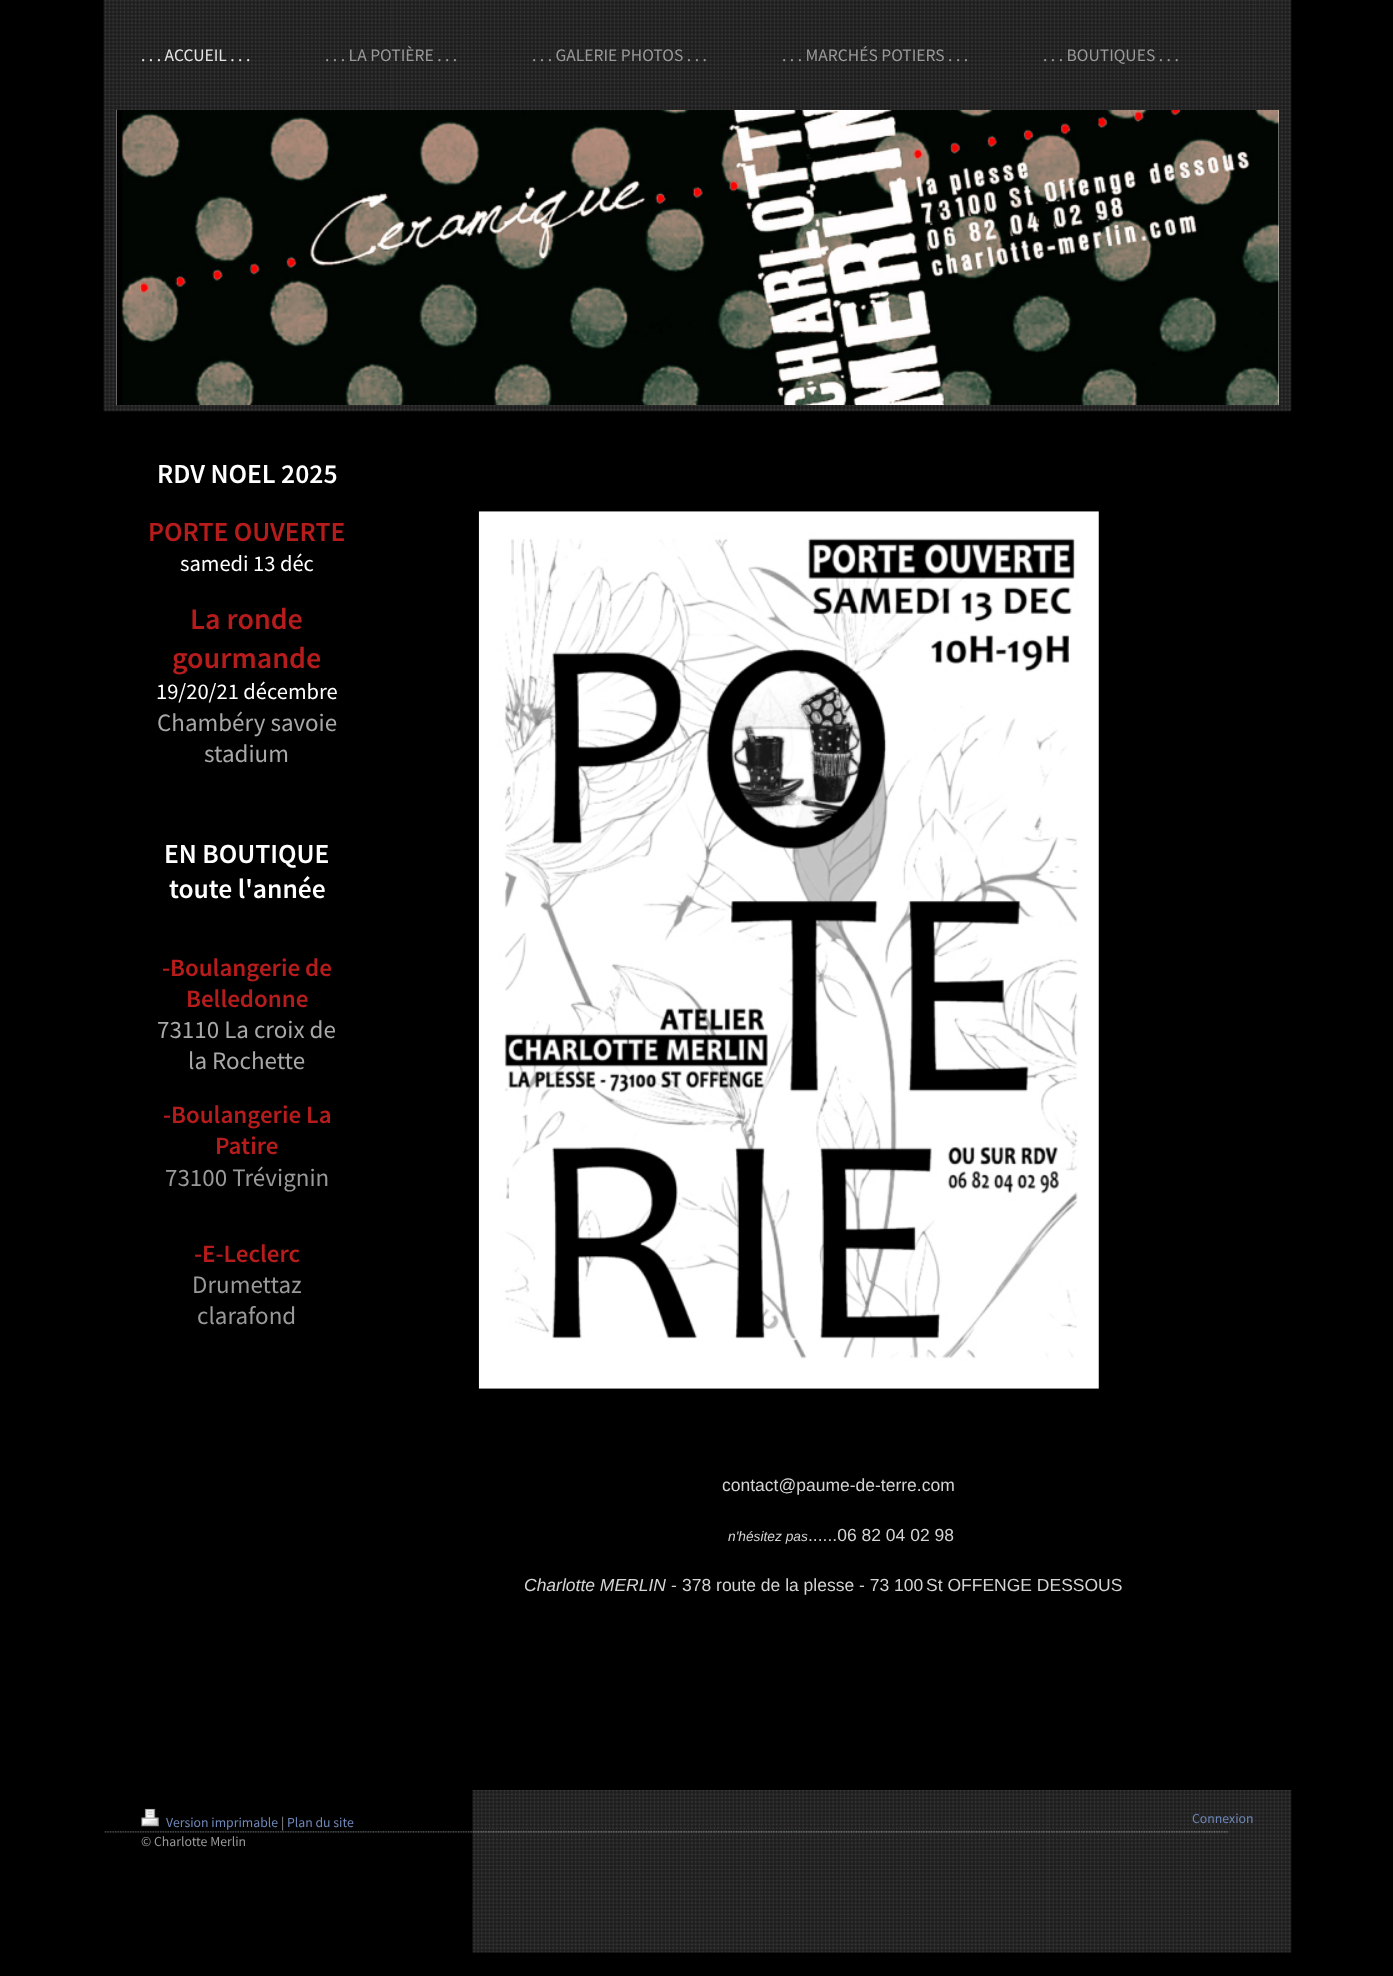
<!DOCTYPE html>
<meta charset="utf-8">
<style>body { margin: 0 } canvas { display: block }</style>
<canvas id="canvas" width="1393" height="1976"></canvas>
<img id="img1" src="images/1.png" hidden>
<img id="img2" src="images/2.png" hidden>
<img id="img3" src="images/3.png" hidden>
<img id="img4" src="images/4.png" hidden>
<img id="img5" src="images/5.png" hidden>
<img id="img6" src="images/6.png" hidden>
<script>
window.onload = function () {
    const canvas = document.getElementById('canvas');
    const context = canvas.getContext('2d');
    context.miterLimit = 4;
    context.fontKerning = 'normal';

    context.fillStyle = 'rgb(0, 0, 0)';
    context.fillRect(0, 0, 1393, 1976);
    context.drawImage(document.getElementById('img1'), 103, 0, 1189, 412);
    context.fillStyle = 'rgb(238, 238, 238)';
    context.fillRect(116, 110, 1163, 295);
    context.drawImage(document.getElementById('img2'), 116, 110, 1163, 295);
    context.drawImage(document.getElementById('img3'), 478, 511, 621, 878);
    context.drawImage(document.getElementById('img4'), 104, 1831, 1125, 2);
    context.drawImage(document.getElementById('img5'), 472, 1790, 820, 163);
    context.drawImage(document.getElementById('img6'), 141, 1808, 18, 19);
    context.font = '17.5px Source Sans Pro';
    context.fillStyle = 'rgb(228, 228, 228)';
    context.fillText('. . . ACCUEIL . . .', 141, 61);
    context.fillStyle = 'rgb(153, 153, 153)';
    context.fillText('. . . LA POTIÈRE . . .', 325, 61);
    context.fillText('. . . GALERIE PHOTOS . . .', 532, 61);
    context.fillText('. . . MARCHÉS POTIERS . . .', 782, 61);
    context.fillText('. . . BOUTIQUES . . .', 1043, 61);
    context.font = '600 27.5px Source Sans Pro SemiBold';
    context.fillStyle = 'rgb(255, 255, 255)';
    context.fillText('RDV NOEL 2025', 157, 483);
    context.fillStyle = 'rgb(183, 28, 28)';
    context.fillText('PORTE OUVERTE', 148, 541);
    context.font = '22.5px Source Sans Pro';
    context.fillStyle = 'rgb(255, 255, 255)';
    context.fillText('samedi 13 déc', 180, 571);
    context.font = '600 30px Source Sans Pro SemiBold';
    context.fillStyle = 'rgb(183, 28, 28)';
    context.fillText('La ronde', 190, 629);
    context.fillText('gourmande', 172, 668);
    context.font = '22.5px Source Sans Pro';
    context.fillStyle = 'rgb(255, 255, 255)';
    context.fillText('19/20/21 décembre', 156, 699);
    context.font = '25px Source Sans Pro';
    context.fillStyle = 'rgb(169, 168, 168)';
    context.fillText('Chambéry savoie', 157, 731);
    context.fillText('stadium', 204, 762);
    context.font = '600 27.5px Source Sans Pro SemiBold';
    context.fillStyle = 'rgb(255, 255, 255)';
    context.fillText('EN BOUTIQUE', 164, 863);
    context.fillText('toute l\'année', 169, 898);
    context.font = '600 25px Source Sans Pro SemiBold';
    context.fillStyle = 'rgb(183, 28, 28)';
    context.fillText('-Boulangerie de', 162, 976);
    context.fillText('Belledonne', 186, 1007);
    context.font = '25px Source Sans Pro';
    context.fillStyle = 'rgb(169, 168, 168)';
    context.fillText('73110 La croix de', 157, 1038);
    context.fillText('la Rochette', 188, 1069);
    context.font = '600 25px Source Sans Pro SemiBold';
    context.fillStyle = 'rgb(183, 28, 28)';
    context.fillText('-Boulangerie La', 163, 1123);
    context.fillText('Patire', 215, 1154);
    context.font = '25px Source Sans Pro';
    context.fillStyle = 'rgb(153, 153, 153)';
    context.fillText('73100 Trévignin', 165, 1186);
    context.font = '600 25px Source Sans Pro SemiBold';
    context.fillStyle = 'rgb(183, 28, 28)';
    context.fillText('-E-Leclerc', 194, 1262);
    context.font = '25px Source Sans Pro';
    context.fillStyle = 'rgb(153, 153, 153)';
    context.fillText('Drumettaz', 192, 1293);
    context.fillText('clarafond', 197, 1324);
    context.font = '17.5px Liberation Sans';
    context.fillStyle = 'rgb(212, 212, 212)';
    context.fillText('contact@paume-de-terre.com', 722, 1491);
    context.font = 'italic 13.75px Liberation Sans';
    context.fillText('n\'hésitez pas', 728, 1541);
    context.font = '17.5px Liberation Sans';
    context.fillText('......06 82 04 02 98', 808, 1541);
    context.font = 'italic 17.5px Liberation Sans';
    context.fillText('Charlotte MERLIN -', 524, 1591);
    context.font = '17.5px Liberation Sans';
    context.fillText('378 route de la plesse - 73 100', 682, 1591);
    context.fillText('St OFFENGE DESSOUS', 926, 1591);
    context.font = '13.75px Source Sans Pro';
    context.fillStyle = 'rgb(111, 135, 183)';
    context.fillText('Version imprimable', 166, 1827);
    context.fillStyle = 'rgb(153, 153, 153)';
    context.fillText('|', 281, 1827);
    context.fillStyle = 'rgb(111, 135, 183)';
    context.fillText('Plan du site', 287, 1827);
    context.fillStyle = 'rgb(153, 153, 153)';
    context.fillText('© Charlotte Merlin', 141, 1846);
    context.fillStyle = 'rgb(111, 135, 183)';
    context.fillText('Connexion', 1192, 1823);
};
</script>
